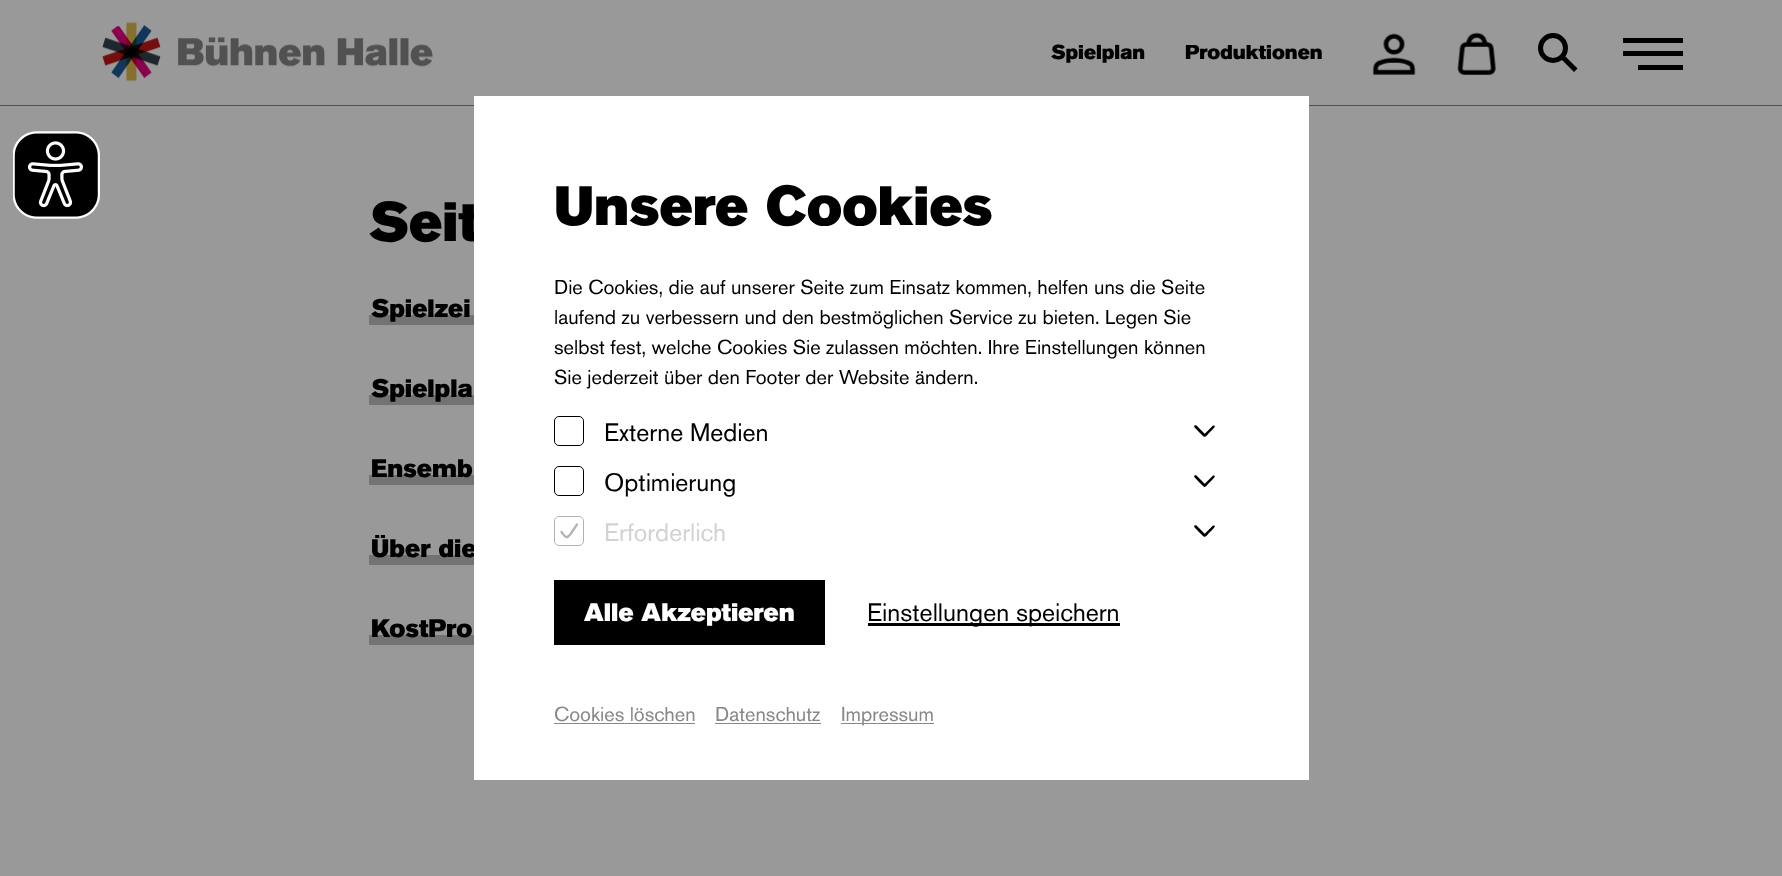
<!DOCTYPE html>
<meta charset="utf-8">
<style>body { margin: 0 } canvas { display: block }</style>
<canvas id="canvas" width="1782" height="876"></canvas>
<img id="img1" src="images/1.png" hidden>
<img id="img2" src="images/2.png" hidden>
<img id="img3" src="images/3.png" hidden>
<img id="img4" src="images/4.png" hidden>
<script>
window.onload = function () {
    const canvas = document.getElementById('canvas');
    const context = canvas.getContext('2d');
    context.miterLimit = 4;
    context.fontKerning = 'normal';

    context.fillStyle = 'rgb(153, 153, 153)';
    context.fillRect(0, 0, 1782, 876);
    context.drawImage(document.getElementById('img1'), 13, 131, 87, 88);
    context.drawImage(document.getElementById('img2'), 102, 22, 331, 60);
    context.drawImage(document.getElementById('img3'), 1372, 33, 44, 42);
    context.drawImage(document.getElementById('img4'), 1457, 32, 39, 43);
    context.beginPath();
    context.arc(1553, 48, 12.5, 0, 2 * Math.PI);
    context.strokeStyle = 'rgb(0, 0, 0)';
    context.lineWidth = 5;
    context.stroke();
    context.fillStyle = 'rgb(0, 0, 0)';
    context.beginPath();
    context.moveTo(1563, 54);
    context.lineTo(1577.5, 68.5);
    context.lineTo(1574, 72);
    context.lineTo(1559.5, 57.5);
    context.closePath();
    context.fill();
    context.fillRect(1623, 38, 60, 5);
    context.fillRect(1623, 51, 60, 5);
    context.fillRect(1638, 65, 45, 5);
    context.fillStyle = 'rgb(81, 81, 80)';
    context.fillRect(0, 105, 1782, 1);
    context.fillStyle = 'rgb(115, 115, 115)';
    context.fillRect(369, 315, 105, 10);
    context.fillRect(369, 395, 105, 10);
    context.fillRect(369, 475, 105, 10);
    context.fillRect(369, 555, 105, 10);
    context.fillRect(369, 635, 105, 10);
    context.font = '900 20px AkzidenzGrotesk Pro';
    context.fillStyle = 'rgb(0, 0, 0)';
    context.fillText('Spielplan', 1051, 59);
    context.fillText('Produktionen', 1185, 59);
    context.font = '900 55px AkzidenzGrotesk Pro';
    context.fillText('Seit', 369, 241);
    context.font = '900 25px AkzidenzGrotesk Pro';
    context.fillText('Spielzei', 371, 317);
    context.fillText('Spielpla', 371, 397);
    context.fillText('Ensemb', 371, 477);
    context.fillText('Über die', 371, 557);
    context.fillText('KostPro', 371, 637);
    context.fillStyle = 'rgb(255, 255, 255)';
    context.fillRect(474, 96, 835, 684);
    context.font = '900 55px AkzidenzGrotesk Pro';
    context.fillStyle = 'rgb(0, 0, 0)';
    context.fillText('Unsere Cookies', 554, 225);
    context.font = '20px AkzidenzGrotesk Pro';
    context.fillText('Die Cookies, die auf unserer Seite zum Einsatz kommen, helfen uns die Seite', 554, 294);
    context.fillText('laufend zu verbessern und den bestmöglichen Service zu bieten. Legen Sie', 554, 324);
    context.fillText('selbst fest, welche Cookies Sie zulassen möchten. Ihre Einstellungen können', 554, 354);
    context.fillText('Sie jederzeit über den Footer der Website ändern.', 554, 384);
    context.beginPath();
    context.roundRect(554.5, 416.5, 29, 29, 4.5);
    context.lineWidth = 1;
    context.stroke();
    context.font = '25px AkzidenzGrotesk Pro';
    context.fillText('Externe Medien', 604, 441);
    context.beginPath();
    context.moveTo(1196.5, 425.5);
    context.lineTo(1205.5, 434.5);
    context.lineTo(1205.5, 436);
    context.bezierCurveTo(1204.5, 438, 1202.5, 435.5, 1202, 435);
    context.lineTo(1197.5, 430.5);
    context.bezierCurveTo(1197, 429.5, 1193, 427, 1194.5, 425.5);
    context.bezierCurveTo(1195, 425, 1196, 425, 1196.5, 425.5);
    context.closePath();
    context.fill();
    context.beginPath();
    context.moveTo(1204, 434.5);
    context.lineTo(1213, 425.5);
    context.lineTo(1214, 425.5);
    context.bezierCurveTo(1216, 426, 1213.5, 428.5, 1213, 429);
    context.lineTo(1208.5, 433.5);
    context.bezierCurveTo(1208, 434, 1205.5, 438, 1204, 436);
    context.bezierCurveTo(1203.5, 436, 1203.5, 435, 1204, 434.5);
    context.closePath();
    context.fill();
    context.beginPath();
    context.roundRect(554.5, 466.5, 29, 29, 4.5);
    context.stroke();
    context.fillText('Optimierung', 604, 491);
    context.beginPath();
    context.moveTo(1196.5, 475.5);
    context.lineTo(1205.5, 484.5);
    context.lineTo(1205.5, 486);
    context.bezierCurveTo(1204.5, 488, 1202.5, 485.5, 1202, 485);
    context.lineTo(1197.5, 480.5);
    context.bezierCurveTo(1197, 479.5, 1193, 477, 1194.5, 475.5);
    context.bezierCurveTo(1195, 475, 1196, 475, 1196.5, 475.5);
    context.closePath();
    context.fill();
    context.beginPath();
    context.moveTo(1204, 484.5);
    context.lineTo(1213, 475.5);
    context.lineTo(1214, 475.5);
    context.bezierCurveTo(1216, 476, 1213.5, 478.5, 1213, 479);
    context.lineTo(1208.5, 483.5);
    context.bezierCurveTo(1208, 484, 1205.5, 488, 1204, 486.5);
    context.bezierCurveTo(1203.5, 486, 1203.5, 485, 1204, 484.5);
    context.closePath();
    context.fill();
    context.beginPath();
    context.roundRect(554.5, 516.5, 29, 29, 4.5);
    context.strokeStyle = 'rgb(179, 179, 179)';
    context.stroke();
    context.beginPath();
    context.moveTo(561.5, 532);
    context.bezierCurveTo(565, 536.5, 566, 540, 570.5, 534);
    context.lineTo(577, 524.5);
    context.lineWidth = 2.3;
    context.lineCap = 'round';
    context.lineJoin = 'round';
    context.stroke();
    context.fillStyle = 'rgb(210, 210, 210)';
    context.fillText('Erforderlich', 604, 541);
    context.fillStyle = 'rgb(0, 0, 0)';
    context.beginPath();
    context.moveTo(1196.5, 525.5);
    context.lineTo(1205.5, 534.5);
    context.lineTo(1205.5, 536);
    context.bezierCurveTo(1204.5, 538, 1202.5, 535.5, 1202, 535);
    context.lineTo(1197.5, 530.5);
    context.bezierCurveTo(1197, 529.5, 1193, 527, 1194.5, 525.5);
    context.bezierCurveTo(1195, 525, 1196, 525, 1196.5, 525.5);
    context.closePath();
    context.fill();
    context.beginPath();
    context.moveTo(1204, 534.5);
    context.lineTo(1213, 525.5);
    context.lineTo(1214, 525.5);
    context.bezierCurveTo(1216, 526, 1213.5, 528.5, 1213, 529);
    context.lineTo(1208.5, 533.5);
    context.bezierCurveTo(1208, 534, 1205.5, 538, 1204, 536);
    context.bezierCurveTo(1203.5, 536, 1203.5, 535, 1204, 534.5);
    context.closePath();
    context.fill();
    context.fillRect(554, 580, 271, 65);
    context.font = '900 25px AkzidenzGrotesk Pro';
    context.fillStyle = 'rgb(255, 255, 255)';
    context.fillText('Alle Akzeptieren', 584, 621);
    context.fillStyle = 'rgb(0, 0, 0)';
    context.fillRect(868, 623, 252, 3);
    context.font = '25px AkzidenzGrotesk Pro';
    context.fillText('Einstellungen speichern', 867, 621);
    context.font = '20px AkzidenzGrotesk Pro';
    context.fillStyle = 'rgb(135, 135, 134)';
    context.fillText('Cookies löschen', 554, 721);
    context.fillRect(554, 723, 141, 1);
    context.fillText('Datenschutz', 715, 721);
    context.fillRect(715, 723, 106, 1);
    context.fillRect(841, 723, 93, 1);
    context.fillText('Impressum', 841, 721);
};
</script>
